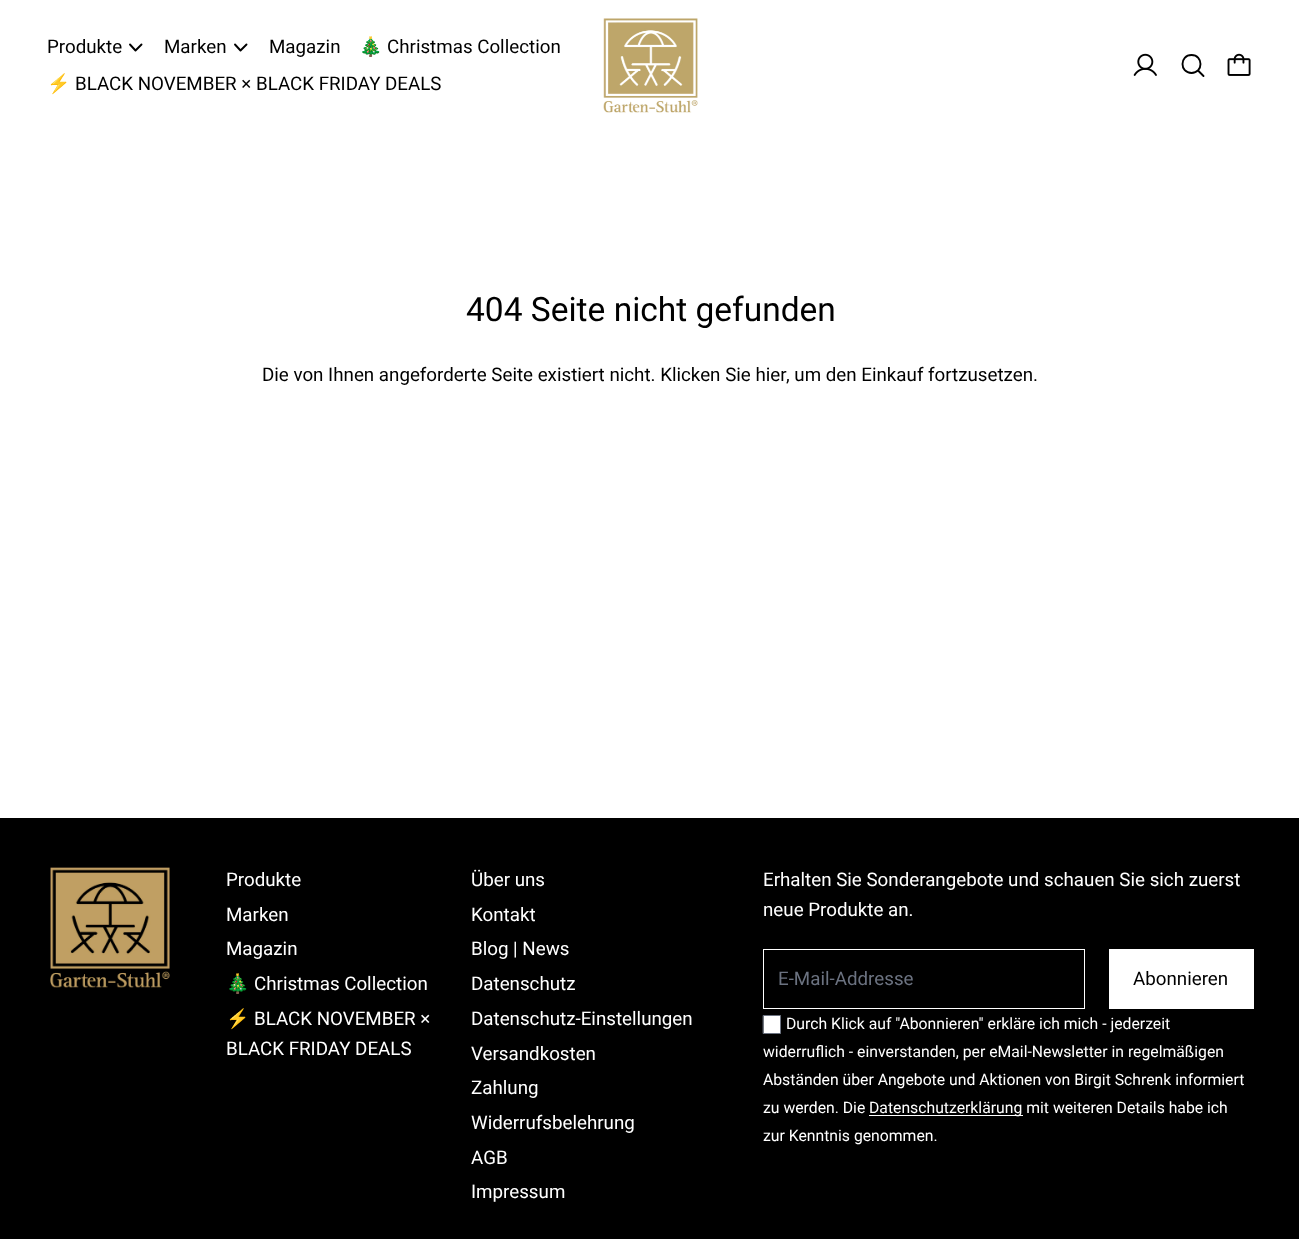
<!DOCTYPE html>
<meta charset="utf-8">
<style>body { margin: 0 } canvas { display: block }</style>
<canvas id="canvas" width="1299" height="1239"></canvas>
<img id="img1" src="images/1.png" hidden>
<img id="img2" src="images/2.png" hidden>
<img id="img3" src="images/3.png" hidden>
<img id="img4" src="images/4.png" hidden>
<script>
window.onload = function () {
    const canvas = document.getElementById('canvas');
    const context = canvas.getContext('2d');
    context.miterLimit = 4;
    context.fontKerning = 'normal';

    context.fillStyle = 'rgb(255, 255, 255)';
    context.fillRect(0, 0, 1299, 1239);
    context.beginPath();
    context.moveTo(141.5, 44.5);
    context.lineTo(135.5, 50.5);
    context.lineTo(130, 44.5);
    context.strokeStyle = 'rgb(0, 0, 0)';
    context.lineWidth = 1.9;
    context.lineCap = 'round';
    context.lineJoin = 'round';
    context.stroke();
    context.beginPath();
    context.moveTo(246.5, 44.5);
    context.lineTo(240.5, 50.5);
    context.lineTo(235, 44.5);
    context.stroke();
    context.drawImage(document.getElementById('img1'), 603, 18, 95, 95);
    context.drawImage(document.getElementById('img2'), 1133, 53, 24, 23);
    context.beginPath();
    context.moveTo(1191.5, 73);
    context.bezierCurveTo(1203.5, 73, 1203.5, 55, 1191.5, 55);
    context.bezierCurveTo(1179.5, 55, 1179.5, 73, 1191.5, 73);
    context.closePath();
    context.moveTo(1198, 70.5);
    context.lineTo(1203.5, 76);
    context.stroke();
    context.drawImage(document.getElementById('img3'), 1227, 53, 24, 23);
    context.fillStyle = 'rgb(0, 0, 0)';
    context.fillRect(0, 818, 1299, 421);
    context.drawImage(document.getElementById('img4'), 50, 867, 120, 121);
    context.strokeStyle = 'rgb(255, 255, 255)';
    context.lineWidth = 1;
    context.lineJoin = 'miter';
    context.strokeRect(763.5, 949.5, 321, 59);
    context.fillStyle = 'rgb(255, 255, 255)';
    context.fillRect(1109, 949, 145, 60);
    context.beginPath();
    context.rect(763.5, 1015.5, 17, 18);
    context.fill();
    context.strokeStyle = 'rgb(107, 114, 128)';
    context.stroke();
    context.fillRect(869, 1115, 154, 1);
    context.font = '18.75px Roboto';
    context.fillStyle = 'rgb(0, 0, 0)';
    context.fillText('Produkte', 47, 53);
    context.fillText('Marken', 164, 53);
    context.fillText('Magazin', 269, 53);
    context.font = '18.75px Noto Color Emoji';
    context.fillText('🎄', 359, 53);
    context.font = '18.75px Roboto';
    context.fillText('Christmas Collection', 387, 53);
    context.font = '18.75px Noto Color Emoji';
    context.fillText('⚡', 47, 90);
    context.font = '18.75px Roboto';
    context.fillText('BLACK NOVEMBER × BLACK FRIDAY DEALS', 75, 90);
    context.font = '33.5px Roboto';
    context.fillText('404 Seite nicht gefunden', 466, 321);
    context.font = '18.75px Roboto';
    context.fillText('Die von Ihnen angeforderte Seite existiert nicht. Klicken Sie hier', 262, 381);
    context.fillText(', um den Einkauf fortzusetzen.', 786, 381);
    context.fillStyle = 'rgb(255, 255, 255)';
    context.fillText('Produkte', 226, 886);
    context.fillText('Marken', 226, 921);
    context.fillText('Magazin', 226, 955);
    context.font = '18.75px Noto Color Emoji';
    context.fillText('🎄', 226, 990);
    context.font = '18.75px Roboto';
    context.fillText('Christmas Collection', 254, 990);
    context.font = '18.75px Noto Color Emoji';
    context.fillText('⚡', 226, 1025);
    context.font = '18.75px Roboto';
    context.fillText('BLACK NOVEMBER ×', 254, 1025);
    context.fillText('BLACK FRIDAY DEALS', 226, 1055);
    context.fillText('Über uns', 471, 886);
    context.fillText('Kontakt', 471, 921);
    context.fillText('Blog | News', 471, 955);
    context.fillText('Datenschutz', 471, 990);
    context.fillText('Datenschutz-Einstellungen', 471, 1025);
    context.fillText('Versandkosten', 471, 1060);
    context.fillText('Zahlung', 471, 1094);
    context.fillText('Widerrufsbelehrung', 471, 1129);
    context.fillText('AGB', 471, 1164);
    context.fillText('Impressum', 471, 1198);
    context.fillText('Erhalten Sie Sonderangebote und schauen Sie sich zuerst', 763, 886);
    context.fillText('neue Produkte an.', 763, 916);
    context.fillStyle = 'rgb(107, 114, 128)';
    context.fillText('E-Mail-Addresse', 778, 985);
    context.fillStyle = 'rgb(0, 0, 0)';
    context.fillText('Abonnieren', 1133, 985);
    context.font = '15.75px Roboto';
    context.fillStyle = 'rgb(255, 255, 255)';
    context.fillText('Durch Klick auf "Abonnieren" erkläre ich mich - jederzeit', 786, 1029);
    context.fillText('widerruflich - einverstanden, per eMail-Newsletter in regelmäßigen', 763, 1057);
    context.fillText('Abständen über Angebote und Aktionen von Birgit Schrenk informiert', 763, 1085);
    context.fillText('zu werden. Die', 763, 1113);
    context.fillText('Datenschutzerklärung mit weiteren Details habe ich', 869, 1113);
    context.fillText('zur Kenntnis genommen.', 763, 1141);
};
</script>
